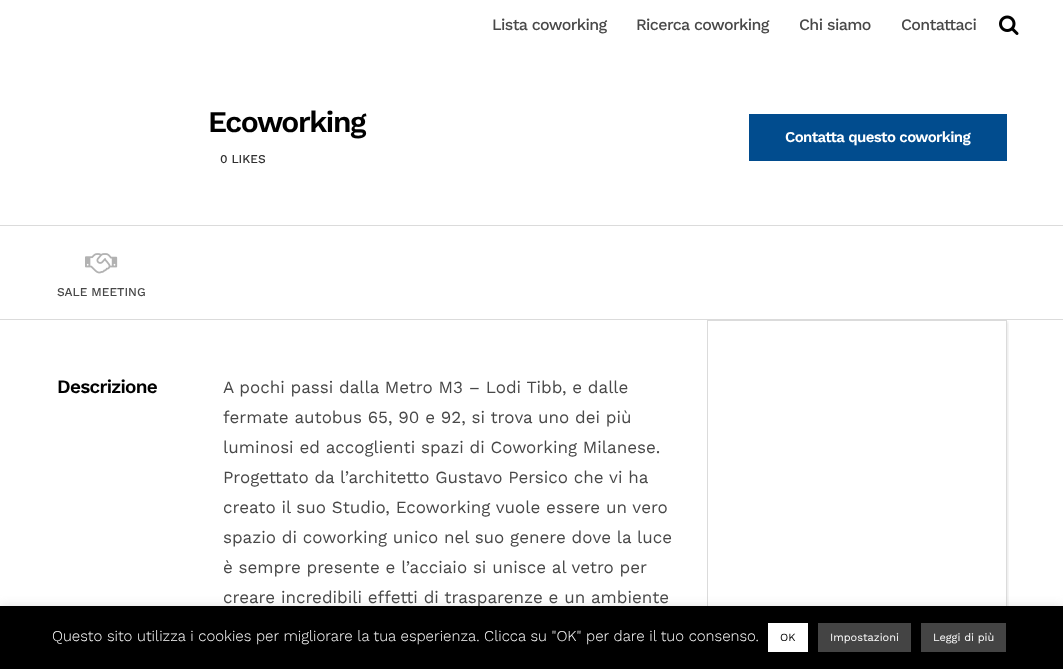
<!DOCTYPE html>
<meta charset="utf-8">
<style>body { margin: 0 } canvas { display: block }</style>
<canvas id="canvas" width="1063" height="669"></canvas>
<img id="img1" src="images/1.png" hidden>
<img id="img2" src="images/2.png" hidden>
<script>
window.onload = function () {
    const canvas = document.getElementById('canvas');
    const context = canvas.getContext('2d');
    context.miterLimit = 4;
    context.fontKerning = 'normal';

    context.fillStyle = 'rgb(255, 255, 255)';
    context.fillRect(0, 0, 1063, 669);
    context.drawImage(document.getElementById('img1'), 999, 15, 20, 20);
    context.fillStyle = 'rgb(219, 219, 219)';
    context.fillRect(0, 225, 1063, 1);
    context.fillStyle = 'rgb(1, 76, 142)';
    context.fillRect(749, 114, 258, 47);
    context.fillStyle = 'rgb(219, 219, 219)';
    context.fillRect(0, 319, 1063, 1);
    context.drawImage(document.getElementById('img2'), 85, 253, 33, 21);
    context.save();
    context.beginPath();
    context.rect(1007, 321, 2, 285);
    context.clip();
    context.fillStyle = 'rgba(0, 0, 0, 0.1)';
    context.filter = 'blur(1.5px)';
    context.beginPath();
    context.roundRect(708, 321, 300, 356, 3);
    context.fill();
    context.filter = 'none';
    context.restore();
    context.strokeStyle = 'rgb(219, 219, 219)';
    context.strokeRect(707.5, 320.5, 299, 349);
    context.fillStyle = 'rgba(172, 171, 171, 0.3)';
    context.filter = 'blur(5px)';
    context.beginPath();
    context.rect(0, 605, 1063, 63);
    context.fill();
    context.filter = 'none';
    context.letterSpacing = '-0.6px';
    context.font = '500 16px Work Sans';
    context.fillStyle = 'rgb(72, 72, 72)';
    context.fillText('Lista coworking', 492, 30);
    context.fillText('Ricerca coworking', 636, 30);
    context.fillText('Chi siamo', 799, 30);
    context.fillText('Contattaci', 901, 30);
    context.letterSpacing = '-1.4px';
    context.font = '600 30px Work Sans';
    context.fillStyle = 'rgb(0, 0, 0)';
    context.fillText('Ecoworking', 208, 132);
    context.letterSpacing = '0px';
    context.font = '500 12px Work Sans';
    context.fillStyle = 'rgb(48, 48, 48)';
    context.fillText('0 LIKES', 220, 163);
    context.letterSpacing = '-0.6px';
    context.font = '600 15px Work Sans';
    context.fillStyle = 'rgb(255, 255, 255)';
    context.fillText('Contatta questo coworking', 785, 142);
    context.letterSpacing = '0px';
    context.font = '500 12px Work Sans';
    context.fillStyle = 'rgb(72, 72, 72)';
    context.fillText('SALE MEETING', 57, 296);
    context.letterSpacing = '-0.75px';
    context.font = '600 19px Work Sans';
    context.fillStyle = 'rgb(0, 0, 0)';
    context.fillText('Descrizione', 57, 393);
    context.letterSpacing = '0px';
    context.font = '17px Work Sans';
    context.fillStyle = 'rgb(72, 72, 72)';
    context.fillText('A pochi passi dalla Metro M3 – Lodi Tibb, e dalle', 223, 393);
    context.fillText('fermate autobus 65, 90 e 92, si trova uno dei più', 223, 423);
    context.fillText('luminosi ed accoglienti spazi di Coworking Milanese.', 223, 453);
    context.fillText('Progettato da l’architetto Gustavo Persico che vi ha', 223, 483);
    context.fillText('creato il suo Studio, Ecoworking vuole essere un vero', 223, 513);
    context.fillText('spazio di coworking unico nel suo genere dove la luce', 223, 543);
    context.fillText('è sempre presente e l’acciaio si unisce al vetro per', 223, 573);
    context.fillText('creare incredibili effetti di trasparenze e un ambiente', 223, 603);
    context.fillStyle = 'rgb(0, 0, 0)';
    context.fillRect(0, 606, 1063, 63);
    context.font = '300 15px Work Sans';
    context.fillStyle = 'rgb(255, 255, 255)';
    context.fillText('Questo sito utilizza i cookies per migliorare la tua esperienza. Clicca su "OK" per dare il tuo consenso.', 52, 641);
    context.fillRect(768, 623, 40, 29);
    context.font = '11px Work Sans';
    context.fillStyle = 'rgb(0, 0, 0)';
    context.fillText('OK', 780, 641);
    context.fillStyle = 'rgb(68, 68, 68)';
    context.fillRect(818, 623, 93, 29);
    context.fillStyle = 'rgb(255, 255, 255)';
    context.fillText('Impostazioni', 830, 641);
    context.fillStyle = 'rgb(68, 68, 68)';
    context.fillRect(921, 623, 85, 29);
    context.fillStyle = 'rgb(255, 255, 255)';
    context.fillText('Leggi di più', 933, 641);
};
</script>
